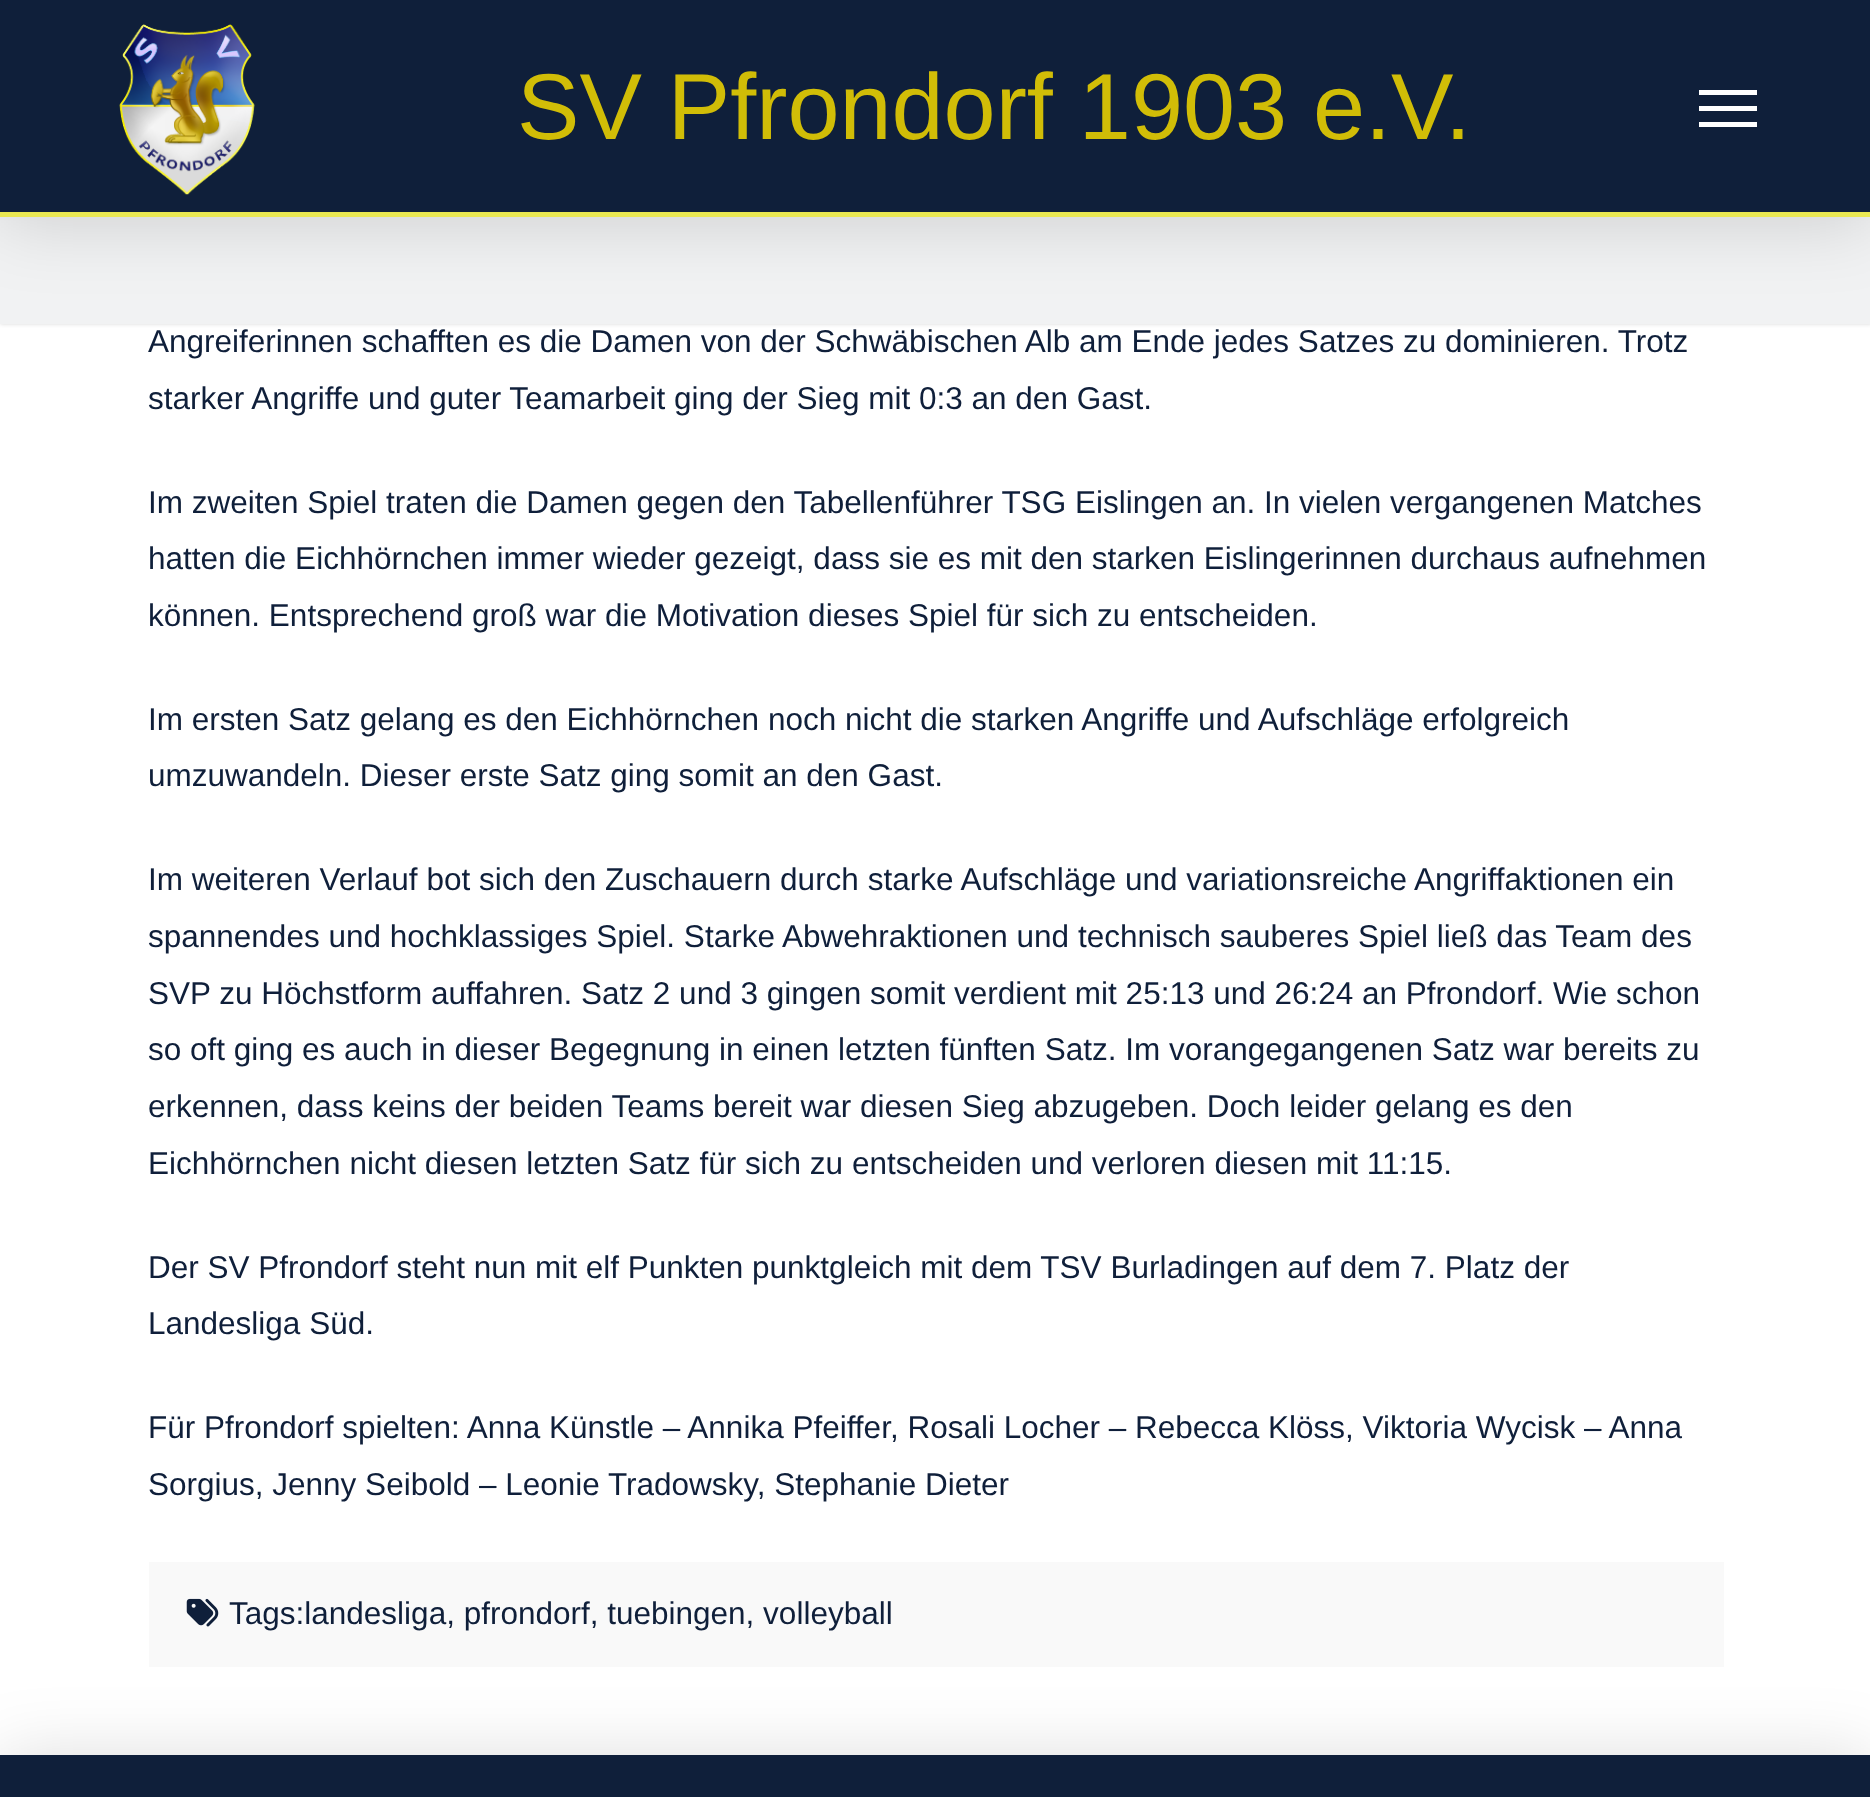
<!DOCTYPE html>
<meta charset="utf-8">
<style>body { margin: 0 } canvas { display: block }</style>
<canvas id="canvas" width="1870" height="1797"></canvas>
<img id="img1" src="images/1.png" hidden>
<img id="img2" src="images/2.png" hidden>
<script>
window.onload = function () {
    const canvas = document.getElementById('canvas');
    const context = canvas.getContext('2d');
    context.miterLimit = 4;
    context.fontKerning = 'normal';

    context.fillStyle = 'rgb(255, 255, 255)';
    context.fillRect(0, 0, 1870, 1797);
    context.fillStyle = 'rgba(0, 0, 0, 0.15)';
    context.filter = 'blur(2px)';
    context.beginPath();
    context.rect(0, 216, 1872, 108);
    context.fill();
    context.filter = 'none';
    context.fillStyle = 'rgb(241, 242, 243)';
    context.fillRect(0, 217, 1870, 107);
    context.fillStyle = 'rgba(0, 0, 0, 0.15)';
    context.filter = 'blur(36px)';
    context.beginPath();
    context.rect(0, 5, 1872, 216);
    context.fill();
    context.filter = 'none';
    context.fillStyle = 'rgb(15, 31, 58)';
    context.fillRect(0, 0, 1870, 212);
    context.fillStyle = 'rgb(234, 232, 82)';
    context.fillRect(0, 212, 1870, 5);
    context.drawImage(document.getElementById('img1'), 119, 24, 136, 171);
    context.fillStyle = 'rgb(255, 255, 255)';
    context.fillRect(1699, 90, 58, 5);
    context.fillRect(1699, 106, 58, 5);
    context.fillRect(1699, 122, 58, 5);
    context.fillStyle = 'rgb(249, 249, 249)';
    context.fillRect(149, 1562, 1575, 105);
    context.drawImage(document.getElementById('img2'), 186, 1598, 33, 29);
    context.fillStyle = 'rgba(0, 0, 0, 0.15)';
    context.filter = 'blur(36px)';
    context.beginPath();
    context.rect(0, 1760, 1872, 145);
    context.fill();
    context.filter = 'none';
    context.fillStyle = 'rgb(15, 31, 58)';
    context.fillRect(0, 1755, 1870, 42);
    context.font = '93.6px Liberation Sans';
    context.fillStyle = 'rgb(209, 189, 7)';
    context.fillText('SV Pfrondorf 1903 e.V.', 517, 139);
    context.font = '31.5px Liberation Sans';
    context.fillStyle = 'rgb(15, 31, 58)';
    context.fillText('Angreiferinnen schafften es die Damen von der Schwäbischen Alb am Ende jedes Satzes zu dominieren. Trotz', 148, 352);
    context.fillText('starker Angriffe und guter Teamarbeit ging der Sieg mit 0:3 an den Gast.', 148, 409);
    context.fillText('Im zweiten Spiel traten die Damen gegen den Tabellenführer TSG Eislingen an. In vielen vergangenen Matches', 148, 513);
    context.fillText('hatten die Eichhörnchen immer wieder gezeigt, dass sie es mit den starken Eislingerinnen durchaus aufnehmen', 148, 569);
    context.fillText('können. Entsprechend groß war die Motivation dieses Spiel für sich zu entscheiden.', 148, 626);
    context.fillText('Im ersten Satz gelang es den Eichhörnchen noch nicht die starken Angriffe und Aufschläge erfolgreich', 148, 730);
    context.fillText('umzuwandeln. Dieser erste Satz ging somit an den Gast.', 148, 786);
    context.fillText('Im weiteren Verlauf bot sich den Zuschauern durch starke Aufschläge und variationsreiche Angriffaktionen ein', 148, 890);
    context.fillText('spannendes und hochklassiges Spiel. Starke Abwehraktionen und technisch sauberes Spiel ließ das Team des', 148, 947);
    context.fillText('SVP zu Höchstform auffahren. Satz 2 und 3 gingen somit verdient mit 25:13 und 26:24 an Pfrondorf. Wie schon', 148, 1004);
    context.fillText('so oft ging es auch in dieser Begegnung in einen letzten fünften Satz. Im vorangegangenen Satz war bereits zu', 148, 1060);
    context.fillText('erkennen, dass keins der beiden Teams bereit war diesen Sieg abzugeben. Doch leider gelang es den', 148, 1117);
    context.fillText('Eichhörnchen nicht diesen letzten Satz für sich zu entscheiden und verloren diesen mit 11:15.', 148, 1174);
    context.fillText('Der SV Pfrondorf steht nun mit elf Punkten punktgleich mit dem TSV Burladingen auf dem 7. Platz der', 148, 1278);
    context.fillText('Landesliga Süd.', 148, 1334);
    context.fillText('Für Pfrondorf spielten: Anna Künstle – Annika Pfeiffer, Rosali Locher – Rebecca Klöss, Viktoria Wycisk – Anna', 148, 1438);
    context.fillText('Sorgius, Jenny Seibold – Leonie Tradowsky, Stephanie Dieter', 148, 1495);
    context.fillText('Tags:landesliga, pfrondorf, tuebingen, volleyball', 229, 1624);
};
</script>
